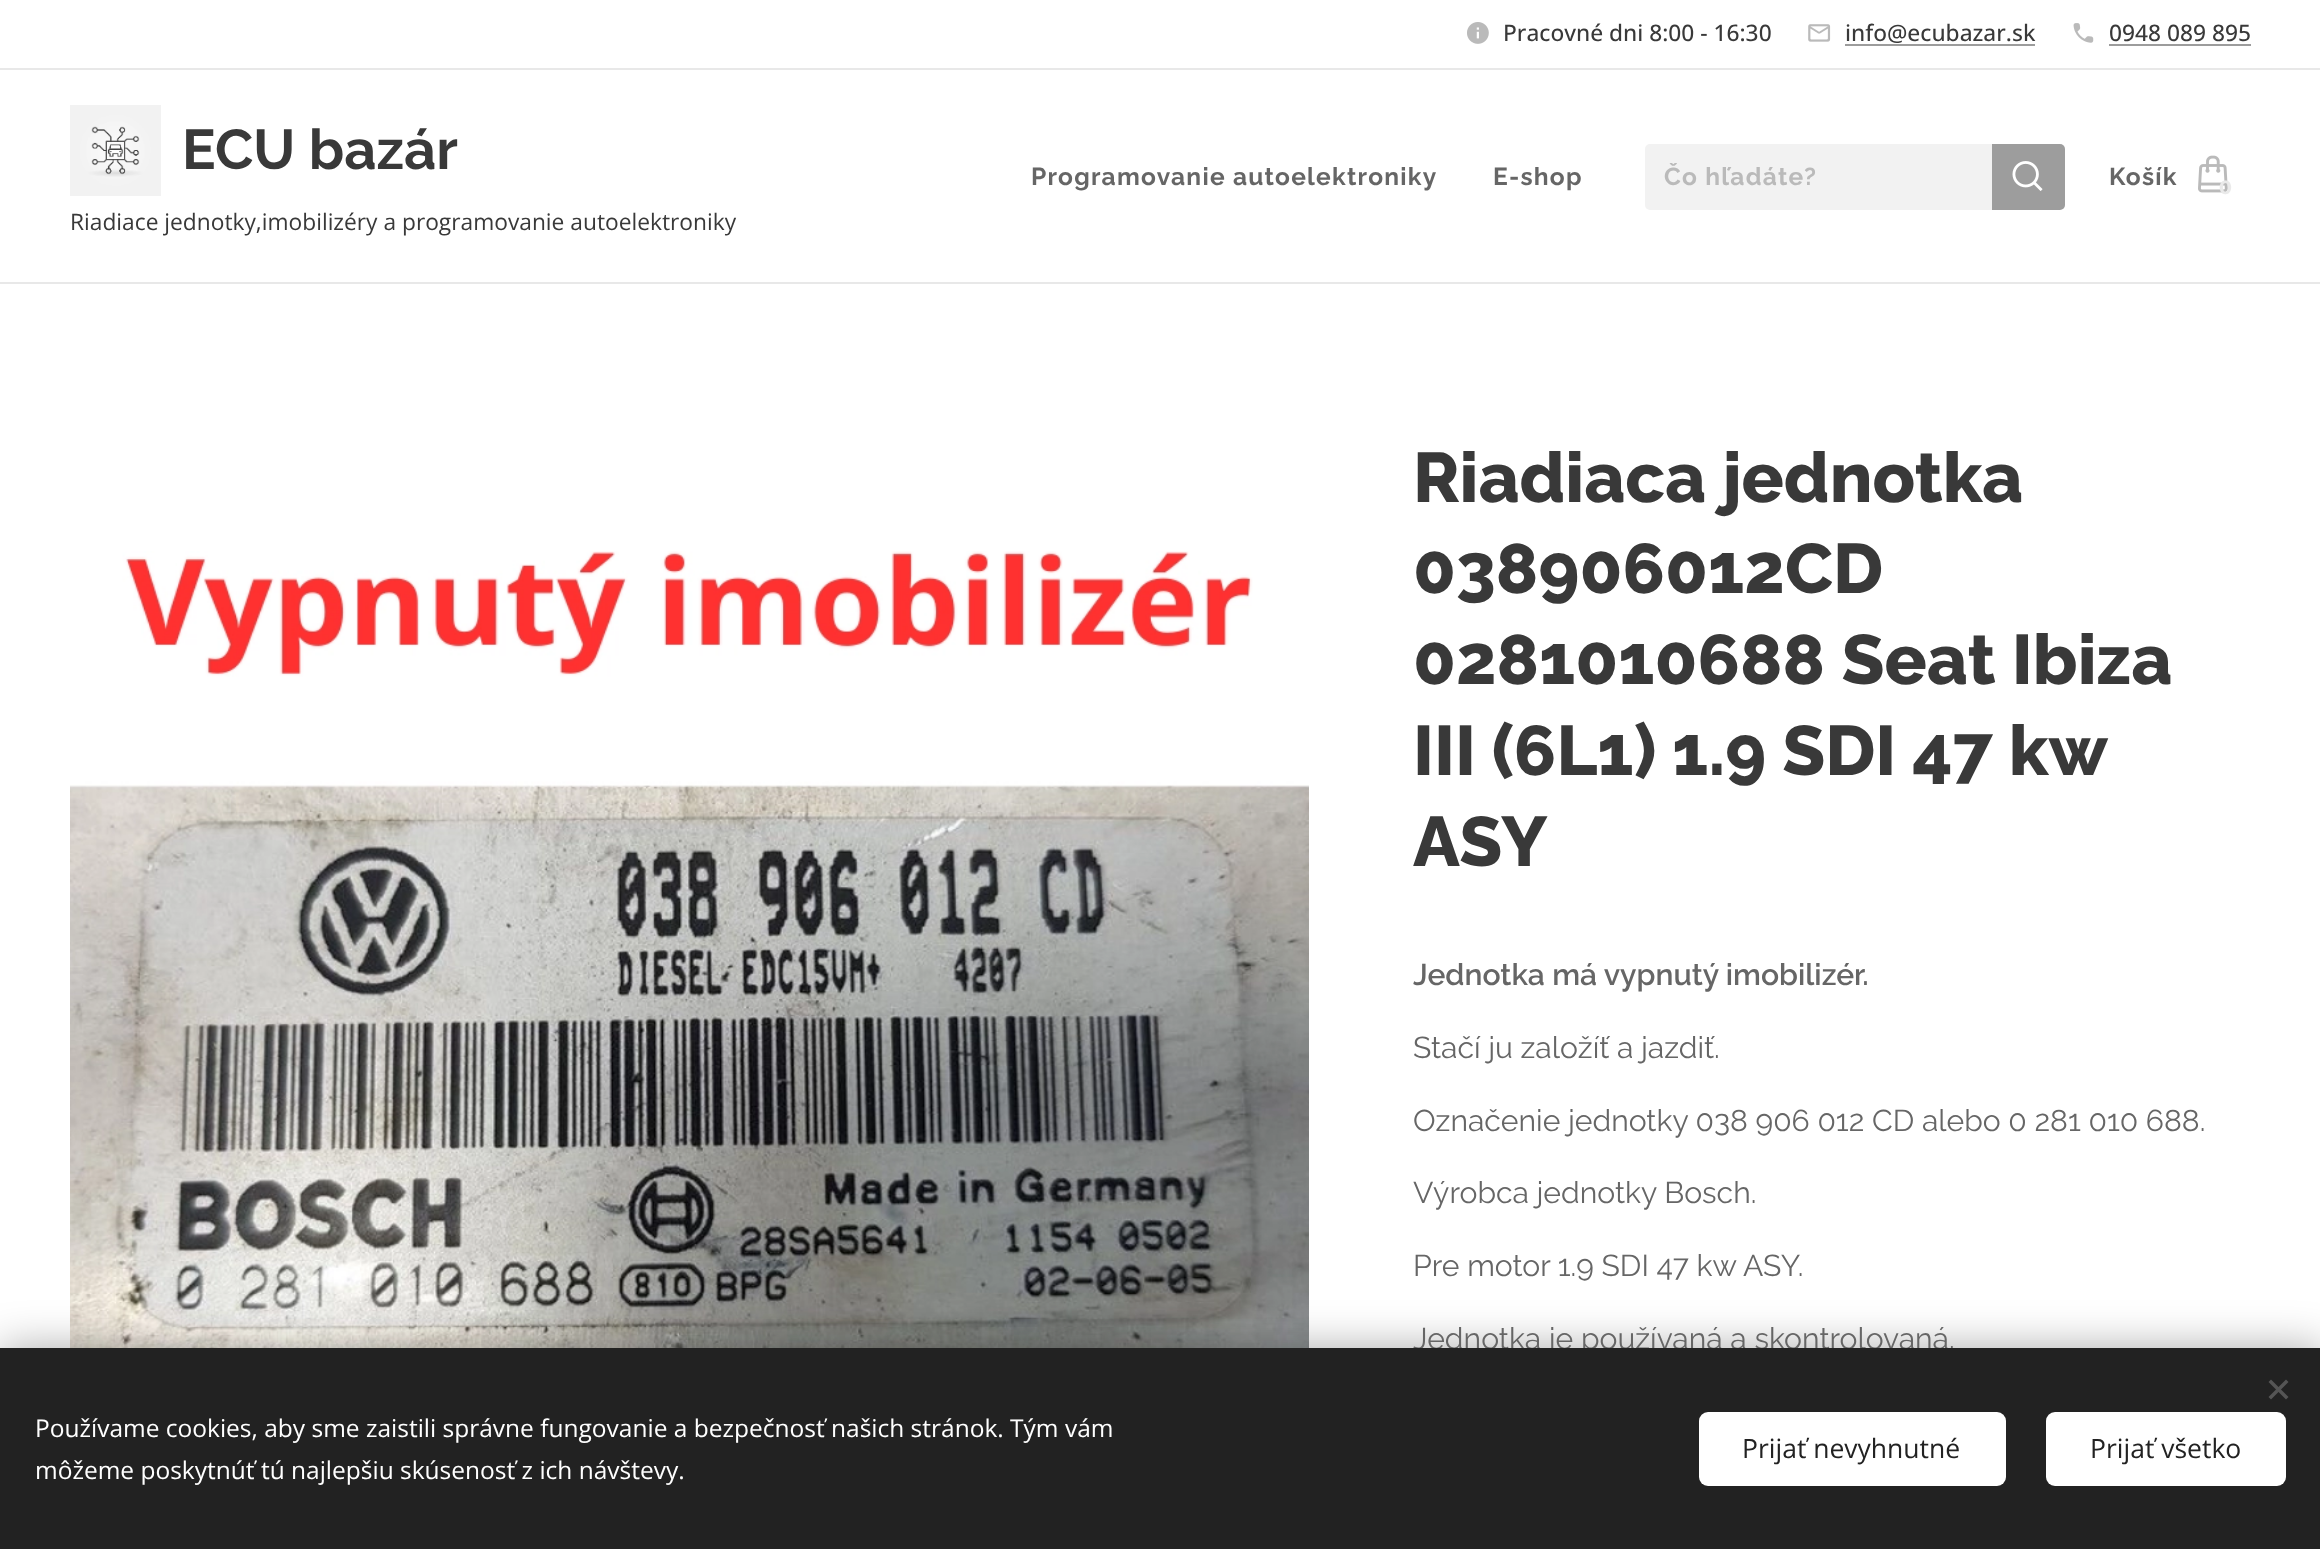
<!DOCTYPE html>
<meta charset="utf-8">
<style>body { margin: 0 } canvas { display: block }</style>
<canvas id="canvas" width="2320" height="1549"></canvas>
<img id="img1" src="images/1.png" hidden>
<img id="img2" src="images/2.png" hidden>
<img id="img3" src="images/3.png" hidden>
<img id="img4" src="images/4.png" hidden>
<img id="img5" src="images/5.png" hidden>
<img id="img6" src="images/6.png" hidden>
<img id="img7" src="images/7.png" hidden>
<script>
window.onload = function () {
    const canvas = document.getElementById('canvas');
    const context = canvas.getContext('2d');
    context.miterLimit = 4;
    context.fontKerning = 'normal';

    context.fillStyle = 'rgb(255, 255, 255)';
    context.fillRect(0, 0, 2320, 1549);
    context.drawImage(document.getElementById('img1'), 1467, 22, 22, 22);
    context.drawImage(document.getElementById('img2'), 1808, 24, 23, 18);
    context.fillStyle = 'rgb(156, 156, 156)';
    context.fillRect(1845, 44, 190, 2);
    context.drawImage(document.getElementById('img3'), 2073, 23, 21, 20);
    context.fillRect(2109, 44, 142, 2);
    context.fillStyle = 'rgb(232, 232, 232)';
    context.fillRect(0, 68, 2320, 2);
    context.drawImage(document.getElementById('img4'), 70, 105, 91, 91);
    context.fillStyle = 'rgb(242, 242, 242)';
    context.beginPath();
    context.roundRect(1645, 144, 347, 66, [5, 0, 0, 5]);
    context.fill();
    context.fillStyle = 'rgb(157, 157, 157)';
    context.beginPath();
    context.roundRect(1992, 144, 73, 66, [0, 5, 5, 0]);
    context.fill();
    context.drawImage(document.getElementById('img5'), 2012, 161, 31, 30);
    context.drawImage(document.getElementById('img6'), 2198, 155, 30, 38);
    context.fillStyle = 'rgb(232, 232, 232)';
    context.fillRect(0, 282, 2320, 2);
    context.drawImage(document.getElementById('img7'), 70, 551, 1239, 797);
    context.fillStyle = 'rgba(0, 0, 0, 0.33)';
    context.filter = 'blur(22px)';
    context.beginPath();
    context.rect(0, 1348, 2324, 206);
    context.fill();
    context.filter = 'none';
    context.font = '500 22.75px Open Sans';
    context.fillStyle = 'rgb(57, 57, 57)';
    context.fillText('Pracovné dni 8:00 - 16:30', 1503, 41);
    context.fillText('info@ecubazar.sk', 1845, 41);
    context.fillText('0948 089 895', 2109, 41);
    context.font = 'bold 56px Raleway';
    context.fillText('ECU bazár', 182, 169);
    context.font = '22.75px Open Sans';
    context.fillText('Riadiace jednotky,imobilizéry a programovanie autoelektroniky', 70, 230);
    context.letterSpacing = '1.25px';
    context.font = 'bold 24.5px Raleway';
    context.fillStyle = 'rgb(102, 102, 102)';
    context.fillText('Programovanie autoelektroniky', 1031, 185);
    context.fillText('E-shop', 1493, 185);
    context.save();
    context.beginPath();
    context.rect(1664, 163, 310, 28);
    context.clip();
    context.fillStyle = 'rgb(186, 186, 186)';
    context.fillText('Čo hľadáte?', 1664, 185);
    context.restore();
    context.fillText('Košík', 2109, 185);
    context.letterSpacing = '0px';
    context.font = 'bold 19px Montserrat';
    context.fillStyle = 'rgb(234, 234, 234)';
    context.fillText('0', 2219, 194);
    context.font = '800 70px Raleway';
    context.fillStyle = 'rgb(57, 57, 57)';
    context.fillText('Riadiaca jednotka', 1413, 502);
    context.fillText('038906012CD', 1413, 593);
    context.fillText('0281010688 Seat Ibiza', 1413, 684);
    context.wordSpacing = '-0.5px';
    context.fillText('III (6L1) 1.9 SDI 47 kw', 1413, 775);
    context.wordSpacing = '0px';
    context.fillText('ASY', 1413, 866);
    context.font = '600 30.1px Raleway';
    context.fillStyle = 'rgb(102, 102, 102)';
    context.fillText('Jednotka má vypnutý imobilizér.', 1413, 985);
    context.font = '30.1px Raleway';
    context.fillText('Stačí ju založíť a jazdiť.', 1413, 1058);
    context.fillText('Označenie jednotky 038 906 012 CD alebo 0 281 010 688.', 1413, 1131);
    context.fillText('Výrobca jednotky Bosch.', 1413, 1203);
    context.fillText('Pre motor 1.9 SDI 47 kw ASY.', 1413, 1276);
    context.fillText('Jednotka je používaná a skontrolovaná.', 1413, 1349);
    context.fillStyle = 'rgb(34, 34, 34)';
    context.fillRect(0, 1348, 2320, 201);
    context.fillStyle = 'rgb(85, 85, 85)';
    context.beginPath();
    context.moveTo(2268.5, 1397);
    context.lineTo(2286, 1379.5);
    context.lineTo(2288.5, 1382);
    context.lineTo(2271, 1399.5);
    context.closePath();
    context.fill();
    context.beginPath();
    context.moveTo(2271, 1379.5);
    context.lineTo(2288.5, 1397);
    context.lineTo(2286, 1399.5);
    context.lineTo(2268.5, 1382);
    context.closePath();
    context.fill();
    context.font = '24.5px Open Sans';
    context.fillStyle = 'rgb(255, 255, 255)';
    context.fillText('Používame cookies, aby sme zaistili správne fungovanie a bezpečnosť našich stránok. Tým vám', 35, 1437);
    context.fillText('môžeme poskytnúť tú najlepšiu skúsenosť z ich návštevy.', 35, 1479);
    context.beginPath();
    context.roundRect(1699, 1412, 307, 74, 9);
    context.fill();
    context.font = '26.5px Open Sans';
    context.fillStyle = 'rgb(34, 34, 34)';
    context.fillText('Prijať nevyhnutné', 1742, 1458);
    context.fillStyle = 'rgb(255, 255, 255)';
    context.beginPath();
    context.roundRect(2046, 1412, 240, 74, 9);
    context.fill();
    context.fillStyle = 'rgb(34, 34, 34)';
    context.fillText('Prijať všetko', 2090, 1458);
};
</script>
